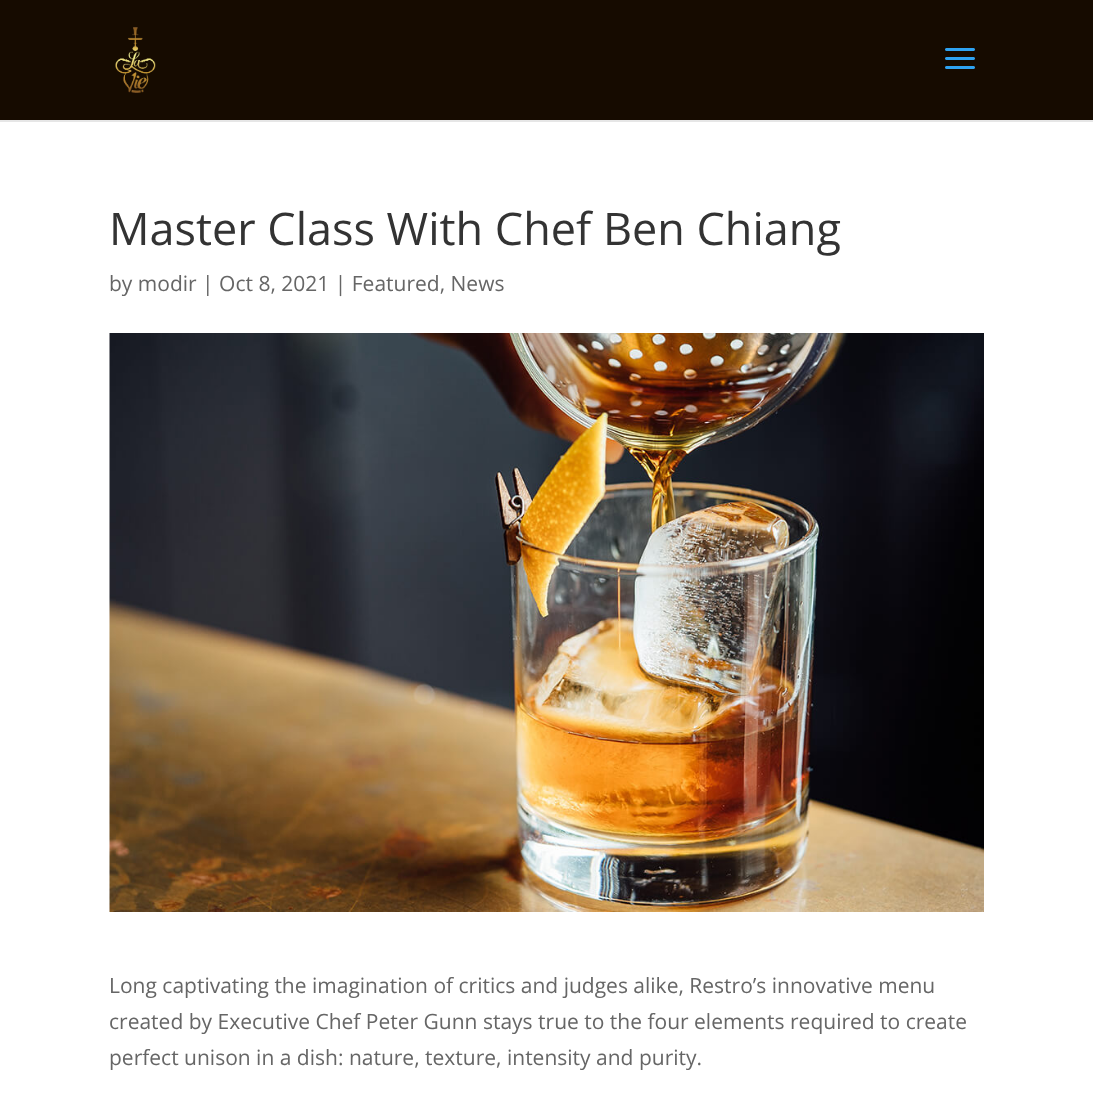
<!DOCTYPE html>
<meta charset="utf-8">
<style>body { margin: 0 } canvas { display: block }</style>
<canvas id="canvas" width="1093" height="1095"></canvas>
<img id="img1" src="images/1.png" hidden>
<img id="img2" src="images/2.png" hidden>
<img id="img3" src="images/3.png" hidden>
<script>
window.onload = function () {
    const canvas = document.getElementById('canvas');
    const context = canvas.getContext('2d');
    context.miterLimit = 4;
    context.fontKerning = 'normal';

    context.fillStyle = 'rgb(255, 255, 255)';
    context.fillRect(0, 0, 1093, 1095);
    context.fillStyle = 'rgb(230, 230, 230)';
    context.beginPath();
    context.moveTo(0, 120);
    context.lineTo(0, 122);
    context.lineTo(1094, 122);
    context.lineTo(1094, 2);
    context.lineTo(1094, 120);
    context.closePath();
    context.fill();
    context.fillStyle = 'rgb(22, 11, 0)';
    context.fillRect(0, 0, 1093, 120);
    context.drawImage(document.getElementById('img1'), 115, 27, 41, 66);
    context.drawImage(document.getElementById('img2'), 945, 48, 30, 21);
    context.drawImage(document.getElementById('img3'), 109, 333, 875, 579);
    context.font = '45px Open Sans';
    context.fillStyle = 'rgb(51, 51, 51)';
    context.fillText('Master Class With Chef Ben Chiang', 109, 245);
    context.font = '21px Open Sans';
    context.fillStyle = 'rgb(102, 102, 102)';
    context.fillText('by modir | Oct 8, 2021 | Featured, News', 109, 291);
    context.fillText('Long captivating the imagination of critics and judges alike, Restro’s innovative menu', 109, 993);
    context.fillText('created by Executive Chef Peter Gunn stays true to the four elements required to create', 109, 1029);
    context.fillText('perfect unison in a dish: nature, texture, intensity and purity.', 109, 1065);
};
</script>
